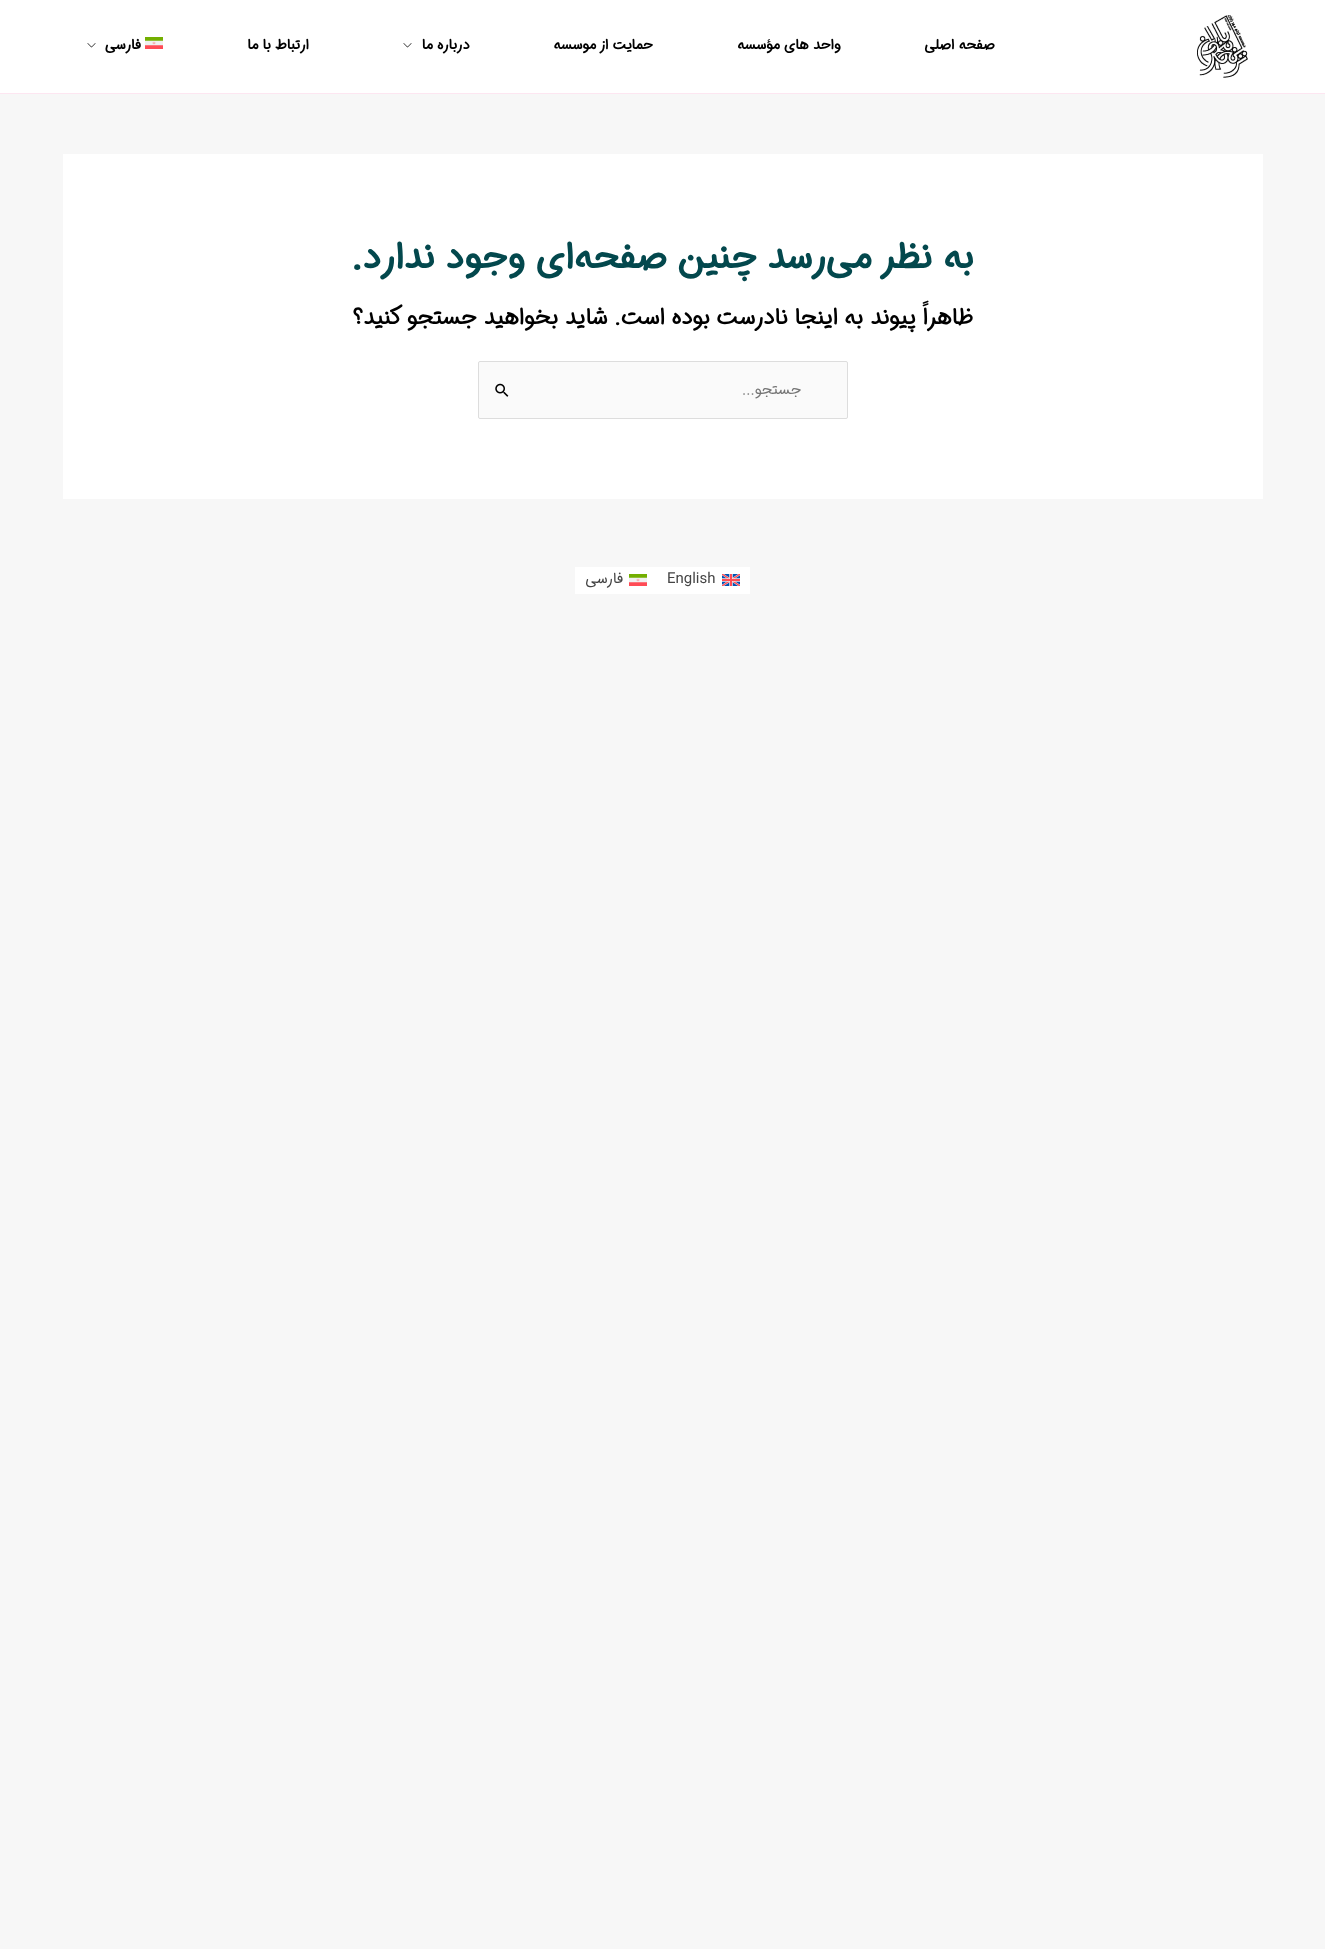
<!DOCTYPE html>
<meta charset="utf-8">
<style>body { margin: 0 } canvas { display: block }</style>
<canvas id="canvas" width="1325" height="1949"></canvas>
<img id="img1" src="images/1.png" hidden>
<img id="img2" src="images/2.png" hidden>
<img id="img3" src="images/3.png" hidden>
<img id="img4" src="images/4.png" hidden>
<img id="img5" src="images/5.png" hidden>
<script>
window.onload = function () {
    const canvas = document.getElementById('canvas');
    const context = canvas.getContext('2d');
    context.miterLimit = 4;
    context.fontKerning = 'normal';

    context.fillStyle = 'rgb(247, 247, 247)';
    context.fillRect(0, 0, 1325, 1949);
    context.fillStyle = 'rgb(255, 255, 255)';
    context.fillRect(0, 0, 1325, 93);
    context.fillStyle = 'rgb(253, 230, 241)';
    context.fillRect(0, 93, 1325, 1);
    context.drawImage(document.getElementById('img1'), 1197, 15, 51, 63);
    context.drawImage(document.getElementById('img2'), 403, 43, 9, 5);
    context.drawImage(document.getElementById('img3'), 145, 37, 18, 12);
    context.drawImage(document.getElementById('img2'), 87, 43, 9, 5);
    context.fillStyle = 'rgb(255, 255, 255)';
    context.fillRect(63, 154, 1200, 345);
    context.fillStyle = 'rgb(250, 250, 250)';
    context.beginPath();
    context.roundRect(478.5, 361.5, 369, 57, 1.5);
    context.fill();
    context.strokeStyle = 'rgb(221, 221, 221)';
    context.stroke();
    context.drawImage(document.getElementById('img4'), 495, 383, 14, 14);
    context.fillStyle = 'rgb(255, 255, 255)';
    context.fillRect(575, 567, 175, 27);
    context.drawImage(document.getElementById('img5'), 722, 574, 18, 12);
    context.drawImage(document.getElementById('img3'), 629, 574, 18, 12);
    context.direction = 'rtl';
    context.font = 'bold 14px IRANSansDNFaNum';
    context.fillStyle = 'rgb(0, 0, 0)';
    context.fillText('صفحه اصلی', 995, 49);
    context.fillText('واحد های مؤسسه', 841, 49);
    context.fillText('حمایت از موسسه', 653, 49);
    context.fillText('درباره ما', 470, 49);
    context.fillText('ارتباط با ما', 309, 49);
    context.fillText('فارسی', 141, 49);
    context.font = 'bold 36px IRANSansDNFaNum';
    context.fillStyle = 'rgb(3, 72, 77)';
    context.fillText('به نظر می‌رسد چنین صفحه‌ای وجود ندارد.', 974, 268);
    context.font = 'bold 22.5px "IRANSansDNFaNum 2"';
    context.fillStyle = 'rgb(0, 0, 0)';
    context.fillText('ظاهراً پیوند به اینجا نادرست بوده است. شاید بخواهید جستجو کنید؟', 973, 324);
    context.font = '15px IRANSansDNFaNum';
    context.fillStyle = 'rgb(117, 117, 117)';
    context.fillText('جستجو...', 801, 394);
    context.direction = 'ltr';
    context.fillStyle = 'rgb(68, 68, 68)';
    context.fillText('English', 667, 583);
    context.direction = 'rtl';
    context.fillText('فارسی', 623, 583);
};
</script>
